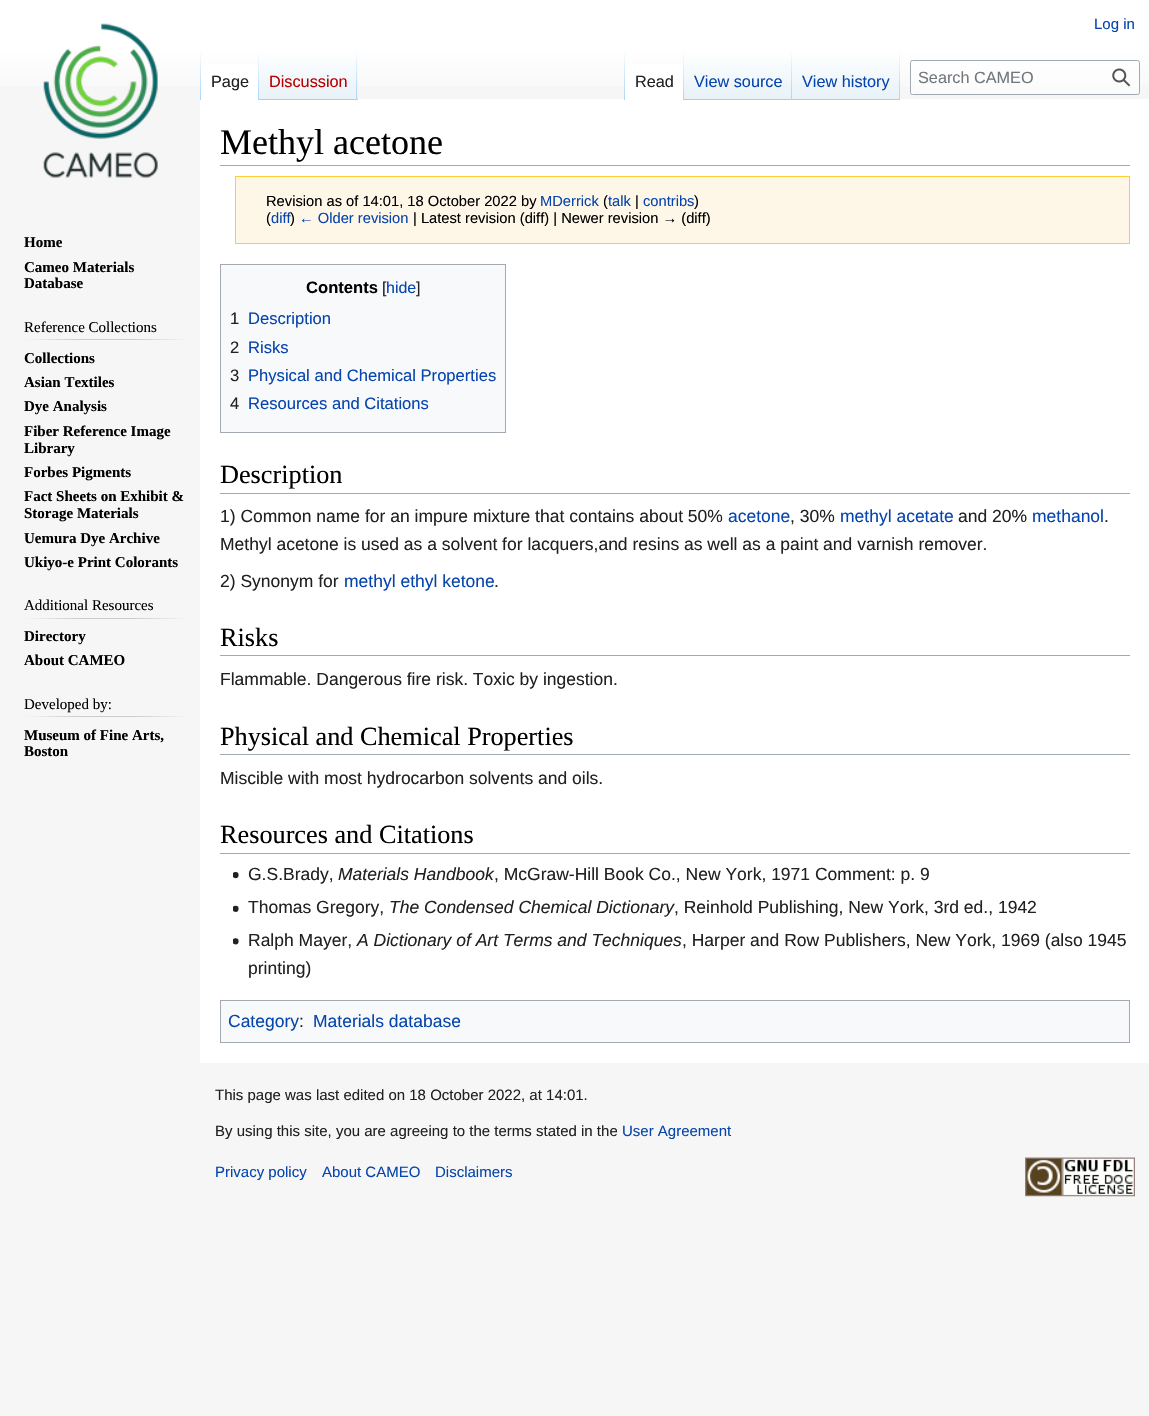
void draw(SkCanvas* canvas) {
	SkPaint paint;
	paint.setAntiAlias(true);
	canvas->clear(0xfff6f6f6);
	{
		const SkColor colors[] = {0xffffffff, 0xfff6f6f6};
		const float stops[] = {0.5, 1};
		const SkPoint ends[] = {{575, 0}, {575, 100}};
		paint.setShader(SkGradientShader::MakeLinear(ends, colors, stops, 2, SkTileMode::kClamp));
		paint.setAlpha(255);
	}
	canvas->drawRect(SkRect::MakeXYWH(0, 0, 1149, 86), paint);
	SkFont f1(fontMgr->matchFamilyStyle("Liberation Sans", SkFontStyle::Normal()), 15);
	f1.setSubpixel(true);
	paint.setShader(nullptr);
	paint.setColor(0xff0645ad);
	canvas->drawString("Log in", 1094, 29, f1, paint);
	paint.setColor(0xffffffff);
	canvas->drawRect(SkRect::MakeXYWH(200, 99, 949, 964), paint);
	{
		const SkColor colors[] = {0x00a7d7f9, 0xffa7d7f9};
		const float stops[] = {0, 1};
		const SkPoint ends[] = {{201, 50}, {201, 100}};
		paint.setShader(SkGradientShader::MakeLinear(ends, colors, stops, 2, SkTileMode::kClamp));
		paint.setAlpha(255);
	}
	canvas->drawRect(SkRect::MakeXYWH(200, 50, 1, 50), paint);
	paint.setShader(nullptr);
	paint.setColor(0xffffffff);
	canvas->drawRect(SkRect::MakeXYWH(201, 64, 57, 35), paint);
	{
		const SkColor colors[] = {0xffffffff, 0xffa7d7f9};
		const float stops[] = {0, 1};
		const SkPoint ends[] = {{258, 50}, {258, 100}};
		paint.setShader(SkGradientShader::MakeLinear(ends, colors, stops, 2, SkTileMode::kClamp));
		paint.setAlpha(255);
	}
	canvas->drawRect(SkRect::MakeXYWH(258, 50, 1, 50), paint);
	SkFont f2(fontMgr->matchFamilyStyle("Liberation Sans", SkFontStyle::Normal()), 16.25);
	f2.setSubpixel(true);
	paint.setShader(nullptr);
	paint.setColor(0xff202122);
	canvas->drawString("Page", 211, 87, f2, paint);
	{
		const SkColor colors[] = {0xff77c1f6, 0xffe8f2f8, 0xffffffff};
		const float stops[] = {0, 0.03, 1};
		const SkPoint ends[] = {{308, 100}, {308, 50}};
		paint.setShader(SkGradientShader::MakeLinear(ends, colors, stops, 3, SkTileMode::kClamp));
		paint.setAlpha(255);
	}
	canvas->drawRect(SkRect::MakeXYWH(259, 57, 99, 43), paint);
	{
		const SkColor colors[] = {0x00a7d7f9, 0xffa7d7f9};
		const float stops[] = {0, 1};
		const SkPoint ends[] = {{357, 50}, {357, 100}};
		paint.setShader(SkGradientShader::MakeLinear(ends, colors, stops, 2, SkTileMode::kClamp));
		paint.setAlpha(255);
	}
	canvas->drawRect(SkRect::MakeXYWH(356, 50, 1, 50), paint);
	paint.setShader(nullptr);
	paint.setColor(0xffba0000);
	canvas->drawString("Discussion", 269, 87, f2, paint);
	{
		const SkColor colors[] = {0x00a7d7f9, 0xffa7d7f9};
		const float stops[] = {0, 1};
		const SkPoint ends[] = {{624, 50}, {624, 100}};
		paint.setShader(SkGradientShader::MakeLinear(ends, colors, stops, 2, SkTileMode::kClamp));
		paint.setAlpha(255);
	}
	canvas->drawRect(SkRect::MakeXYWH(624, 50, 1, 50), paint);
	paint.setShader(nullptr);
	paint.setColor(0xffffffff);
	canvas->drawRect(SkRect::MakeXYWH(625, 64, 58, 35), paint);
	{
		const SkColor colors[] = {0xffffffff, 0xffa7d7f9};
		const float stops[] = {0, 1};
		const SkPoint ends[] = {{683, 50}, {683, 100}};
		paint.setShader(SkGradientShader::MakeLinear(ends, colors, stops, 2, SkTileMode::kClamp));
		paint.setAlpha(255);
	}
	canvas->drawRect(SkRect::MakeXYWH(683, 50, 1, 50), paint);
	paint.setShader(nullptr);
	paint.setColor(0xff202122);
	canvas->drawString("Read", 635, 87, f2, paint);
	{
		const SkColor colors[] = {0xff77c1f6, 0xffe8f2f8, 0xffffffff};
		const float stops[] = {0, 0.03, 1};
		const SkPoint ends[] = {{738, 100}, {738, 50}};
		paint.setShader(SkGradientShader::MakeLinear(ends, colors, stops, 3, SkTileMode::kClamp));
		paint.setAlpha(255);
	}
	canvas->drawRect(SkRect::MakeXYWH(684, 57, 109, 43), paint);
	{
		const SkColor colors[] = {0x00a7d7f9, 0xffa7d7f9};
		const float stops[] = {0, 1};
		const SkPoint ends[] = {{792, 50}, {792, 100}};
		paint.setShader(SkGradientShader::MakeLinear(ends, colors, stops, 2, SkTileMode::kClamp));
		paint.setAlpha(255);
	}
	canvas->drawRect(SkRect::MakeXYWH(791, 50, 1, 50), paint);
	paint.setShader(nullptr);
	paint.setColor(0xff0645ad);
	canvas->drawString("View source", 694, 87, f2, paint);
	{
		const SkColor colors[] = {0xff77c1f6, 0xffe8f2f8, 0xffffffff};
		const float stops[] = {0, 0.03, 1};
		const SkPoint ends[] = {{846, 100}, {846, 50}};
		paint.setShader(SkGradientShader::MakeLinear(ends, colors, stops, 3, SkTileMode::kClamp));
		paint.setAlpha(255);
	}
	canvas->drawRect(SkRect::MakeXYWH(793, 57, 107, 43), paint);
	{
		const SkColor colors[] = {0x00a7d7f9, 0xffa7d7f9};
		const float stops[] = {0, 1};
		const SkPoint ends[] = {{899, 50}, {899, 100}};
		paint.setShader(SkGradientShader::MakeLinear(ends, colors, stops, 2, SkTileMode::kClamp));
		paint.setAlpha(255);
	}
	canvas->drawRect(SkRect::MakeXYWH(899, 50, 1, 50), paint);
	paint.setShader(nullptr);
	paint.setColor(0xff0645ad);
	canvas->drawString("View history", 802, 87, f2, paint);
	paint.setColor(0x80ffffff);
	canvas->drawRoundRect(SkRect::MakeXYWH(910.5, 60.5, 229, 34), 2, 2, paint);
	paint.setStroke(true);
	paint.setStrokeWidth(1);
	paint.setColor(0xffa2a9b1);
	canvas->drawRoundRect(SkRect::MakeXYWH(910.5, 60.5, 229, 34), 2, 2, paint);
	paint.setStroke(false);
	paint.setColor(0xff72777d);
	canvas->drawString("Search CAMEO", 918, 83, f2, paint);
	canvas->drawImageRect(SkImages::DeferredFromEncodedData(SkData::MakeFromFileName("img1.png")), SkRect::MakeXYWH(1112, 68, 19, 19), SkSamplingOptions());
	canvas->drawImageRect(SkImages::DeferredFromEncodedData(SkData::MakeFromFileName("img2.png")), SkRect::MakeXYWH(43, 23, 115, 155), SkSamplingOptions());
	SkFont f3(fontMgr->matchFamilyStyle("Liberation Serif", SkFontStyle::Bold()), 15);
	f3.setSubpixel(true);
	paint.setColor(0xff000000);
	canvas->drawString("Home", 24, 247, f3, paint);
	canvas->drawString("Cameo Materials", 24, 272, f3, paint);
	canvas->drawString("Database", 24, 288, f3, paint);
	{
		const SkColor colors[] = {0xfff6f6f6, 0xffc8ccd1, 0xffc8ccd1, 0xfff6f6f6};
		const float stops[] = {0, 0.33, 0.66, 1};
		const SkPoint ends[] = {{24, 339}, {188, 339}};
		paint.setShader(SkGradientShader::MakeLinear(ends, colors, stops, 4, SkTileMode::kClamp));
		paint.setAlpha(255);
	}
	canvas->drawRect(SkRect::MakeXYWH(24, 339, 164, 1), paint);
	SkFont f4(fontMgr->matchFamilyStyle("Liberation Serif", SkFontStyle::Normal()), 15);
	f4.setSubpixel(true);
	paint.setShader(nullptr);
	paint.setColor(0xff000000);
	canvas->drawString("Reference Collections", 24, 332, f4, paint);
	canvas->drawString("Collections", 24, 363, f3, paint);
	canvas->drawString("Asian Textiles", 24, 387, f3, paint);
	canvas->drawString("Dye Analysis", 24, 411, f3, paint);
	canvas->drawString("Fiber Reference Image", 24, 436, f3, paint);
	canvas->drawString("Library", 24, 453, f3, paint);
	canvas->drawString("Forbes Pigments", 24, 477, f3, paint);
	canvas->drawString("Fact Sheets on Exhibit &", 24, 501, f3, paint);
	canvas->drawString("Storage Materials", 24, 518, f3, paint);
	canvas->drawString("Uemura Dye Archive", 24, 543, f3, paint);
	canvas->drawString("Ukiyo-e Print Colorants", 24, 567, f3, paint);
	{
		const SkColor colors[] = {0xfff6f6f6, 0xffc8ccd1, 0xffc8ccd1, 0xfff6f6f6};
		const float stops[] = {0, 0.33, 0.66, 1};
		const SkPoint ends[] = {{24, 618}, {188, 618}};
		paint.setShader(SkGradientShader::MakeLinear(ends, colors, stops, 4, SkTileMode::kClamp));
		paint.setAlpha(255);
	}
	canvas->drawRect(SkRect::MakeXYWH(24, 618, 164, 1), paint);
	paint.setShader(nullptr);
	paint.setColor(0xff000000);
	canvas->drawString("Additional Resources", 24, 610, f4, paint);
	canvas->drawString("Directory", 24, 641, f3, paint);
	canvas->drawString("About CAMEO", 24, 665, f3, paint);
	{
		const SkColor colors[] = {0xfff6f6f6, 0xffc8ccd1, 0xffc8ccd1, 0xfff6f6f6};
		const float stops[] = {0, 0.33, 0.66, 1};
		const SkPoint ends[] = {{24, 717}, {188, 717}};
		paint.setShader(SkGradientShader::MakeLinear(ends, colors, stops, 4, SkTileMode::kClamp));
		paint.setAlpha(255);
	}
	canvas->drawRect(SkRect::MakeXYWH(24, 716, 164, 1), paint);
	paint.setShader(nullptr);
	paint.setColor(0xff000000);
	canvas->drawString("Developed by:", 24, 709, f4, paint);
	canvas->drawString("Museum of Fine Arts,", 24, 740, f3, paint);
	canvas->drawString("Boston", 24, 756, f3, paint);
	paint.setColor(0xffa2a9b1);
	canvas->drawRect(SkRect::MakeXYWH(220, 165, 910, 1), paint);
	SkFont f5(fontMgr->matchFamilyStyle("Liberation Serif", SkFontStyle::Normal()), 36);
	f5.setSubpixel(true);
	paint.setColor(0xff000000);
	canvas->drawString("Methyl acetone", 220, 154, f5, paint);
	paint.setColor(0xfffef6e7);
	canvas->drawRect(SkRect::MakeXYWH(235.5, 176.5, 894, 67), paint);
	paint.setStroke(true);
	paint.setColor(0xffffcc33);
	canvas->drawRect(SkRect::MakeXYWH(235.5, 176.5, 894, 67), paint);
	SkFont f6(fontMgr->matchFamilyStyle("Liberation Sans", SkFontStyle::Normal()), 14.7);
	f6.setSubpixel(true);
	paint.setStroke(false);
	paint.setColor(0xff000000);
	canvas->drawString("Revision as of 14:01, 18 October 2022 by", 266, 206, f6, paint);
	paint.setColor(0xff0645ad);
	canvas->drawString("MDerrick", 540, 206, f6, paint);
	paint.setColor(0xff000000);
	canvas->drawString("(", 603, 206, f6, paint);
	paint.setColor(0xff0645ad);
	canvas->drawString("talk", 608, 206, f6, paint);
	paint.setColor(0xff000000);
	canvas->drawString("|", 635, 206, f6, paint);
	paint.setColor(0xff0645ad);
	canvas->drawString("contribs", 643, 206, f6, paint);
	paint.setColor(0xff000000);
	canvas->drawString(")", 694, 206, f6, paint);
	canvas->drawString("(", 266, 223, f6, paint);
	paint.setColor(0xff0645ad);
	canvas->drawString("diff", 271, 223, f6, paint);
	paint.setColor(0xff000000);
	canvas->drawString(")", 290, 223, f6, paint);
	paint.setColor(0xff0645ad);
	canvas->drawString("← Older revision", 299, 223, f6, paint);
	paint.setColor(0xff000000);
	canvas->drawString("| Latest revision (diff) | Newer revision → (diff)", 413, 223, f6, paint);
	paint.setColor(0xfff8f9fa);
	canvas->drawRect(SkRect::MakeXYWH(220.5, 264.5, 285, 168), paint);
	paint.setStroke(true);
	paint.setColor(0xffa2a9b1);
	canvas->drawRect(SkRect::MakeXYWH(220.5, 264.5, 285, 168), paint);
	SkFont f7(fontMgr->matchFamilyStyle("Liberation Sans", SkFontStyle::Bold()), 16.6);
	f7.setSubpixel(true);
	paint.setStroke(false);
	paint.setColor(0xff000000);
	canvas->drawString("Contents", 306, 293, f7, paint);
	SkFont f8(fontMgr->matchFamilyStyle("Liberation Sans", SkFontStyle::Normal()), 16);
	f8.setSubpixel(true);
	paint.setColor(0xff202122);
	canvas->drawString("[", 382, 293, f8, paint);
	paint.setColor(0xff0645ad);
	canvas->drawString("hide", 386, 293, f8, paint);
	paint.setColor(0xff202122);
	canvas->drawString("]", 416, 293, f8, paint);
	SkFont f9(fontMgr->matchFamilyStyle("Liberation Sans", SkFontStyle::Normal()), 16.6);
	f9.setSubpixel(true);
	canvas->drawString("1", 230, 324, f9, paint);
	paint.setColor(0xff0645ad);
	canvas->drawString("Description", 248, 324, f9, paint);
	paint.setColor(0xff202122);
	canvas->drawString("2", 230, 353, f9, paint);
	paint.setColor(0xff0645ad);
	canvas->drawString("Risks", 248, 353, f9, paint);
	paint.setColor(0xff202122);
	canvas->drawString("3", 230, 381, f9, paint);
	paint.setColor(0xff0645ad);
	canvas->drawString("Physical and Chemical Properties", 248, 381, f9, paint);
	paint.setColor(0xff202122);
	canvas->drawString("4", 230, 409, f9, paint);
	paint.setColor(0xff0645ad);
	canvas->drawString("Resources and Citations", 248, 409, f9, paint);
	paint.setColor(0xffa2a9b1);
	canvas->drawRect(SkRect::MakeXYWH(220, 493, 910, 1), paint);
	SkFont f10(fontMgr->matchFamilyStyle("Liberation Serif", SkFontStyle::Normal()), 26.25);
	f10.setSubpixel(true);
	paint.setColor(0xff000000);
	canvas->drawString("Description", 220, 483, f10, paint);
	SkFont f11(fontMgr->matchFamilyStyle("Liberation Sans", SkFontStyle::Normal()), 17.5);
	f11.setSubpixel(true);
	paint.setColor(0xff202122);
	canvas->drawString("1) Common name for an impure mixture that contains about 50%", 220, 522, f11, paint);
	paint.setColor(0xff0645ad);
	canvas->drawString("acetone", 728, 522, f11, paint);
	paint.setColor(0xff202122);
	canvas->drawString(", 30%", 790, 522, f11, paint);
	paint.setColor(0xff0645ad);
	canvas->drawString("methyl acetate", 840, 522, f11, paint);
	paint.setColor(0xff202122);
	canvas->drawString("and 20%", 958, 522, f11, paint);
	paint.setColor(0xff0645ad);
	canvas->drawString("methanol", 1032, 522, f11, paint);
	paint.setColor(0xff202122);
	canvas->drawString(".", 1104, 522, f11, paint);
	canvas->drawString("Methyl acetone is used as a solvent for lacquers,and resins as well as a paint and varnish remover.", 220, 550, f11, paint);
	canvas->drawString("2) Synonym for", 220, 587, f11, paint);
	paint.setColor(0xff0645ad);
	canvas->drawString("methyl ethyl ketone", 344, 587, f11, paint);
	paint.setColor(0xff202122);
	canvas->drawString(".", 494, 587, f11, paint);
	paint.setColor(0xffa2a9b1);
	canvas->drawRect(SkRect::MakeXYWH(220, 655, 910, 1), paint);
	paint.setColor(0xff000000);
	canvas->drawString("Risks", 220, 646, f10, paint);
	paint.setColor(0xff202122);
	canvas->drawString("Flammable. Dangerous fire risk. Toxic by ingestion.", 220, 685, f11, paint);
	paint.setColor(0xffa2a9b1);
	canvas->drawRect(SkRect::MakeXYWH(220, 754, 910, 1), paint);
	paint.setColor(0xff000000);
	canvas->drawString("Physical and Chemical Properties", 220, 745, f10, paint);
	paint.setColor(0xff202122);
	canvas->drawString("Miscible with most hydrocarbon solvents and oils.", 220, 784, f11, paint);
	paint.setColor(0xffa2a9b1);
	canvas->drawRect(SkRect::MakeXYWH(220, 853, 910, 1), paint);
	paint.setColor(0xff000000);
	canvas->drawString("Resources and Citations", 220, 843, f10, paint);
	canvas->drawImageRect(SkImages::DeferredFromEncodedData(SkData::MakeFromFileName("img3.png")), SkRect::MakeXYWH(233, 872, 6, 7), SkSamplingOptions());
	paint.setColor(0xff202122);
	canvas->drawString("G.S.Brady,", 248, 880, f11, paint);
	SkFont f12(fontMgr->matchFamilyStyle("Liberation Sans", SkFontStyle::Italic()), 17.5);
	f12.setSubpixel(true);
	canvas->drawString("Materials Handbook", 338, 880, f12, paint);
	canvas->drawString(", McGraw-Hill Book Co., New York, 1971 Comment: p. 9", 494, 880, f11, paint);
	canvas->drawImageRect(SkImages::DeferredFromEncodedData(SkData::MakeFromFileName("img4.png")), SkRect::MakeXYWH(233, 905, 6, 7), SkSamplingOptions());
	canvas->drawString("Thomas Gregory,", 248, 913, f11, paint);
	canvas->drawString("The Condensed Chemical Dictionary", 389, 913, f12, paint);
	canvas->drawString(", Reinhold Publishing, New York, 3rd ed., 1942", 674, 913, f11, paint);
	canvas->drawImageRect(SkImages::DeferredFromEncodedData(SkData::MakeFromFileName("img5.png")), SkRect::MakeXYWH(233, 938, 6, 7), SkSamplingOptions());
	canvas->drawString("Ralph Mayer,", 248, 946, f11, paint);
	canvas->drawString("A Dictionary of Art Terms and Techniques", 357, 946, f12, paint);
	canvas->drawString(", Harper and Row Publishers, New York, 1969 (also 1945", 682, 946, f11, paint);
	canvas->drawString("printing)", 248, 974, f11, paint);
	paint.setColor(0xfff8f9fa);
	canvas->drawRect(SkRect::MakeXYWH(220.5, 1000.5, 909, 42), paint);
	paint.setStroke(true);
	paint.setColor(0xffa2a9b1);
	canvas->drawRect(SkRect::MakeXYWH(220.5, 1000.5, 909, 42), paint);
	paint.setStroke(false);
	paint.setColor(0xff0645ad);
	canvas->drawString("Category", 228, 1027, f11, paint);
	paint.setColor(0xff202122);
	canvas->drawString(":", 299, 1027, f11, paint);
	paint.setColor(0xff0645ad);
	canvas->drawString("Materials database", 313, 1027, f11, paint);
	paint.setColor(0xff202122);
	canvas->drawString("This page was last edited on 18 October 2022, at 14:01.", 215, 1100, f1, paint);
	canvas->drawString("By using this site, you are agreeing to the terms stated in the", 215, 1136, f1, paint);
	paint.setColor(0xff0645ad);
	canvas->drawString("User Agreement", 622, 1136, f1, paint);
	canvas->drawString("Privacy policy", 215, 1177, f1, paint);
	canvas->drawString("About CAMEO", 322, 1177, f1, paint);
	canvas->drawString("Disclaimers", 435, 1177, f1, paint);
	canvas->drawImageRect(SkImages::DeferredFromEncodedData(SkData::MakeFromFileName("img6.png")), SkRect::MakeXYWH(1025, 1157, 110, 40), SkSamplingOptions());
}
